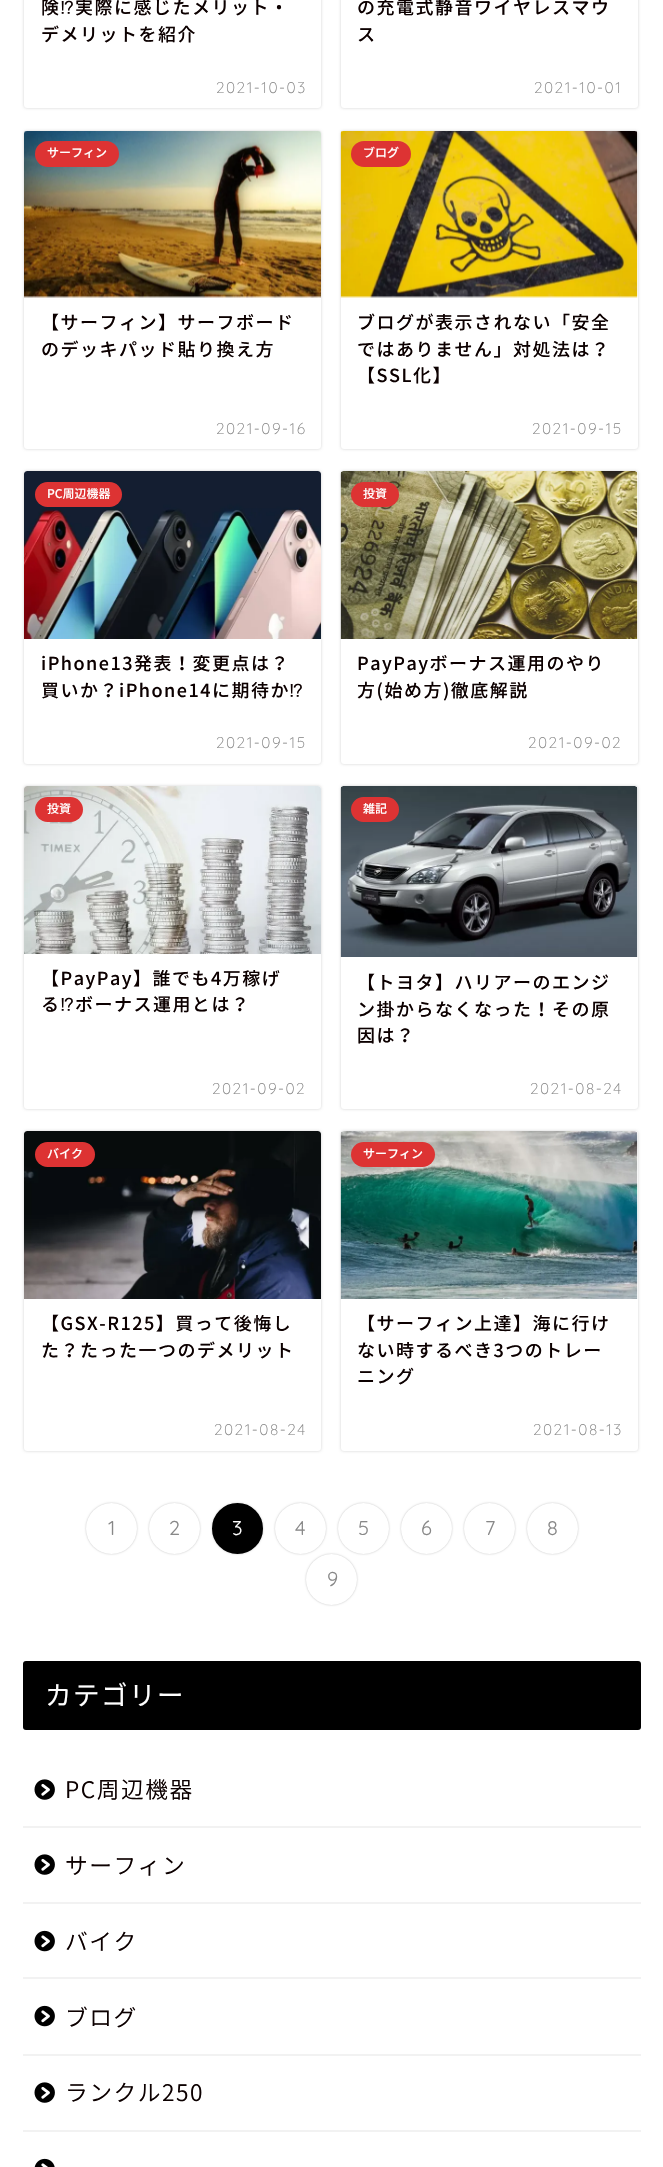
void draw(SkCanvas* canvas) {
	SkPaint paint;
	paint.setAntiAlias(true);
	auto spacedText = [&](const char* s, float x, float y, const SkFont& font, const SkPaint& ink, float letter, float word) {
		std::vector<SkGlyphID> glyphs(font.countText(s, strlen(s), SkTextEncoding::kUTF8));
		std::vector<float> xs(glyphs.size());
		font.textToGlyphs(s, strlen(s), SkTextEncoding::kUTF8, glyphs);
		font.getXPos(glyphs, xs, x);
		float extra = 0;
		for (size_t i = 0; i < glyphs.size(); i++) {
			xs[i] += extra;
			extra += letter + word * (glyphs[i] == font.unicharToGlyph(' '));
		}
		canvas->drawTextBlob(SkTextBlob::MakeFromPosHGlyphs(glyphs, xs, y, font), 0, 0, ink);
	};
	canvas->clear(0xffffffff);
	paint.setColor(0x2e000000);
	paint.setMaskFilter(SkMaskFilter::MakeBlur(kNormal_SkBlurStyle, 1.5));
	canvas->drawRoundRect(SkRect::MakeXYWH(24, -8, 297, 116), 3, 3, paint);
	paint.setMaskFilter(nullptr);
	paint.setColor(0xffffffff);
	canvas->drawRoundRect(SkRect::MakeXYWH(24, -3, 297, 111), 3, 3, paint);
	SkFont f1(fontMgr->matchFamilyStyle("Noto Sans JP", SkFontStyle(500, SkFontStyle::kNormal_Width, SkFontStyle::kUpright_Slant)), 18);
	f1.setSubpixel(true);
	paint.setColor(0xff0c0000);
	spacedText("険", 41, 14, f1, paint, 1.5, 0);
	SkFont f2(fontMgr->matchFamilyStyle("IPAPGothic", SkFontStyle::Normal()), 18);
	f2.setSubpixel(true);
	spacedText("⁉", 60, 14, f2, paint, 1.5, 0);
	spacedText("実際に感じたメリット・", 75, 14, f1, paint, 1.5, 0);
	spacedText("デメリットを紹介", 41, 41, f1, paint, 1.5, 0);
	SkFont f3(fontMgr->matchFamilyStyle("Quicksand", SkFontStyle(300, SkFontStyle::kNormal_Width, SkFontStyle::kUpright_Slant)), 15.5);
	f3.setSubpixel(true);
	paint.setColor(0xff888888);
	spacedText("2021-10-03", 216, 93, f3, paint, 1.5, 0);
	paint.setColor(0x2e000000);
	paint.setMaskFilter(SkMaskFilter::MakeBlur(kNormal_SkBlurStyle, 1.5));
	canvas->drawRoundRect(SkRect::MakeXYWH(341, -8, 297, 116), 3, 3, paint);
	paint.setMaskFilter(nullptr);
	paint.setColor(0xffffffff);
	canvas->drawRoundRect(SkRect::MakeXYWH(341, -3, 297, 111), 3, 3, paint);
	paint.setColor(0xff0c0000);
	spacedText("の充電式静音ワイヤレスマウ", 357, 14, f1, paint, 1.5, 0);
	spacedText("ス", 357, 41, f1, paint, 1.5, 0);
	paint.setColor(0xff888888);
	spacedText("2021-10-01", 534, 93, f3, paint, 1.5, 0);
	paint.setColor(0x2e000000);
	paint.setMaskFilter(SkMaskFilter::MakeBlur(kNormal_SkBlurStyle, 1.5));
	canvas->drawRoundRect(SkRect::MakeXYWH(24, 131, 297, 318), 3, 3, paint);
	paint.setMaskFilter(nullptr);
	paint.setColor(0xffffffff);
	canvas->drawRoundRect(SkRect::MakeXYWH(24, 131, 297, 318), 3, 3, paint);
	canvas->drawImageRect(SkImages::DeferredFromEncodedData(SkData::MakeFromFileName("img1.png")), SkRect::MakeXYWH(24, 131, 297, 167), SkSamplingOptions());
	paint.setColor(0xffdd3333);
	canvas->drawRoundRect(SkRect::MakeXYWH(35, 141, 84, 26), 13, 13, paint);
	SkFont f4(fontMgr->matchFamilyStyle("Noto Sans JP", SkFontStyle(500, SkFontStyle::kNormal_Width, SkFontStyle::kUpright_Slant)), 12);
	f4.setSubpixel(true);
	paint.setColor(0xffffffff);
	canvas->drawString("サーフィン", 47, 157, f4, paint);
	paint.setColor(0xff0c0000);
	spacedText("【サーフィン】サーフボード", 41, 329, f1, paint, 1.5, 0);
	spacedText("のデッキパッド貼り換え方", 41, 356, f1, paint, 1.5, 0);
	paint.setColor(0xff888888);
	spacedText("2021-09-16", 216, 434, f3, paint, 1.5, 0);
	paint.setColor(0x2e000000);
	paint.setMaskFilter(SkMaskFilter::MakeBlur(kNormal_SkBlurStyle, 1.5));
	canvas->drawRoundRect(SkRect::MakeXYWH(341, 131, 297, 318), 3, 3, paint);
	paint.setMaskFilter(nullptr);
	paint.setColor(0xffffffff);
	canvas->drawRoundRect(SkRect::MakeXYWH(341, 131, 297, 318), 3, 3, paint);
	canvas->drawImageRect(SkImages::DeferredFromEncodedData(SkData::MakeFromFileName("img2.png")), SkRect::MakeXYWH(340, 131, 298, 167), SkSamplingOptions());
	paint.setColor(0xffdd3333);
	canvas->drawRoundRect(SkRect::MakeXYWH(351, 141, 60, 26), 13, 13, paint);
	paint.setColor(0xffffffff);
	canvas->drawString("ブログ", 363, 157, f4, paint);
	paint.setColor(0xff0c0000);
	spacedText("ブログが表示されない「安全", 357, 329, f1, paint, 1.5, 0);
	spacedText("ではありません」対処法は？", 357, 356, f1, paint, 1.5, 0);
	spacedText("【SSL化】", 357, 382, f1, paint, 1.5, 0);
	paint.setColor(0xff888888);
	spacedText("2021-09-15", 532, 434, f3, paint, 1.5, 0);
	paint.setColor(0x2e000000);
	paint.setMaskFilter(SkMaskFilter::MakeBlur(kNormal_SkBlurStyle, 1.5));
	canvas->drawRoundRect(SkRect::MakeXYWH(24, 471, 297, 293), 3, 3, paint);
	paint.setMaskFilter(nullptr);
	paint.setColor(0xffffffff);
	canvas->drawRoundRect(SkRect::MakeXYWH(24, 471, 297, 293), 3, 3, paint);
	canvas->drawImageRect(SkImages::DeferredFromEncodedData(SkData::MakeFromFileName("img3.png")), SkRect::MakeXYWH(24, 471, 297, 168), SkSamplingOptions());
	paint.setColor(0xffdd3333);
	canvas->drawRoundRect(SkRect::MakeXYWH(35, 482, 87, 25), 12.5, 12.5, paint);
	paint.setColor(0xffffffff);
	canvas->drawString("PC周辺機器", 47, 498, f4, paint);
	paint.setColor(0xff0c0000);
	spacedText("iPhone13発表！変更点は？", 41, 670, f1, paint, 1.5, 0);
	spacedText("買いか？iPhone14に期待か", 41, 697, f1, paint, 1.5, 0);
	spacedText("⁉", 289, 697, f2, paint, 1.5, 0);
	paint.setColor(0xff888888);
	spacedText("2021-09-15", 216, 748, f3, paint, 1.5, 0);
	paint.setColor(0x2e000000);
	paint.setMaskFilter(SkMaskFilter::MakeBlur(kNormal_SkBlurStyle, 1.5));
	canvas->drawRoundRect(SkRect::MakeXYWH(341, 471, 297, 293), 3, 3, paint);
	paint.setMaskFilter(nullptr);
	paint.setColor(0xffffffff);
	canvas->drawRoundRect(SkRect::MakeXYWH(341, 471, 297, 293), 3, 3, paint);
	canvas->drawImageRect(SkImages::DeferredFromEncodedData(SkData::MakeFromFileName("img4.png")), SkRect::MakeXYWH(340, 471, 298, 168), SkSamplingOptions());
	paint.setColor(0xffdd3333);
	canvas->drawRoundRect(SkRect::MakeXYWH(351, 482, 48, 25), 12.5, 12.5, paint);
	paint.setColor(0xffffffff);
	canvas->drawString("投資", 363, 498, f4, paint);
	paint.setColor(0xff0c0000);
	spacedText("PayPayボーナス運用のやり", 357, 670, f1, paint, 1.5, 0);
	spacedText("方(始め方)徹底解説", 357, 697, f1, paint, 1.5, 0);
	paint.setColor(0xff888888);
	spacedText("2021-09-02", 528, 748, f3, paint, 1.5, 0);
	paint.setColor(0x2e000000);
	paint.setMaskFilter(SkMaskFilter::MakeBlur(kNormal_SkBlurStyle, 1.5));
	canvas->drawRoundRect(SkRect::MakeXYWH(24, 786, 297, 323), 3, 3, paint);
	paint.setMaskFilter(nullptr);
	paint.setColor(0xffffffff);
	canvas->drawRoundRect(SkRect::MakeXYWH(24, 786, 297, 323), 3, 3, paint);
	canvas->drawImageRect(SkImages::DeferredFromEncodedData(SkData::MakeFromFileName("img5.png")), SkRect::MakeXYWH(24, 786, 297, 168), SkSamplingOptions());
	paint.setColor(0xffdd3333);
	canvas->drawRoundRect(SkRect::MakeXYWH(35, 797, 48, 25), 12.5, 12.5, paint);
	paint.setColor(0xffffffff);
	canvas->drawString("投資", 47, 813, f4, paint);
	paint.setColor(0xff0c0000);
	spacedText("【PayPay】誰でも4万稼げ", 41, 985, f1, paint, 1.5, 0);
	spacedText("る", 41, 1011, f1, paint, 1.5, 0);
	spacedText("⁉", 60, 1011, f2, paint, 1.5, 0);
	spacedText("ボーナス運用とは？", 75, 1011, f1, paint, 1.5, 0);
	paint.setColor(0xff888888);
	spacedText("2021-09-02", 212, 1094, f3, paint, 1.5, 0);
	paint.setColor(0x2e000000);
	paint.setMaskFilter(SkMaskFilter::MakeBlur(kNormal_SkBlurStyle, 1.5));
	canvas->drawRoundRect(SkRect::MakeXYWH(341, 786, 297, 323), 3, 3, paint);
	paint.setMaskFilter(nullptr);
	paint.setColor(0xffffffff);
	canvas->drawRoundRect(SkRect::MakeXYWH(341, 786, 297, 323), 3, 3, paint);
	canvas->drawImageRect(SkImages::DeferredFromEncodedData(SkData::MakeFromFileName("img6.png")), SkRect::MakeXYWH(340, 786, 298, 171), SkSamplingOptions());
	paint.setColor(0xffdd3333);
	canvas->drawRoundRect(SkRect::MakeXYWH(351, 797, 48, 25), 12.5, 12.5, paint);
	paint.setColor(0xffffffff);
	canvas->drawString("雑記", 363, 813, f4, paint);
	paint.setColor(0xff0c0000);
	spacedText("【トヨタ】ハリアーのエンジ", 357, 989, f1, paint, 1.5, 0);
	spacedText("ン掛からなくなった！その原", 357, 1016, f1, paint, 1.5, 0);
	spacedText("因は？", 357, 1042, f1, paint, 1.5, 0);
	paint.setColor(0xff888888);
	spacedText("2021-08-24", 530, 1094, f3, paint, 1.5, 0);
	paint.setColor(0x2e000000);
	paint.setMaskFilter(SkMaskFilter::MakeBlur(kNormal_SkBlurStyle, 1.5));
	canvas->drawRoundRect(SkRect::MakeXYWH(24, 1131, 297, 320), 3, 3, paint);
	paint.setMaskFilter(nullptr);
	paint.setColor(0xffffffff);
	canvas->drawRoundRect(SkRect::MakeXYWH(24, 1131, 297, 320), 3, 3, paint);
	canvas->drawImageRect(SkImages::DeferredFromEncodedData(SkData::MakeFromFileName("img7.png")), SkRect::MakeXYWH(24, 1131, 297, 168), SkSamplingOptions());
	paint.setColor(0xffdd3333);
	canvas->drawRoundRect(SkRect::MakeXYWH(35, 1142, 60, 25), 12.5, 12.5, paint);
	paint.setColor(0xffffffff);
	canvas->drawString("バイク", 47, 1158, f4, paint);
	paint.setColor(0xff0c0000);
	spacedText("【GSX-R125】買って後悔し", 41, 1330, f1, paint, 1.5, 0);
	spacedText("た？たった一つのデメリット", 41, 1357, f1, paint, 1.5, 0);
	paint.setColor(0xff888888);
	spacedText("2021-08-24", 214, 1435, f3, paint, 1.5, 0);
	paint.setColor(0x2e000000);
	paint.setMaskFilter(SkMaskFilter::MakeBlur(kNormal_SkBlurStyle, 1.5));
	canvas->drawRoundRect(SkRect::MakeXYWH(341, 1131, 297, 320), 3, 3, paint);
	paint.setMaskFilter(nullptr);
	paint.setColor(0xffffffff);
	canvas->drawRoundRect(SkRect::MakeXYWH(341, 1131, 297, 320), 3, 3, paint);
	canvas->drawImageRect(SkImages::DeferredFromEncodedData(SkData::MakeFromFileName("img8.png")), SkRect::MakeXYWH(340, 1131, 298, 168), SkSamplingOptions());
	paint.setColor(0xffdd3333);
	canvas->drawRoundRect(SkRect::MakeXYWH(351, 1142, 84, 25), 12.5, 12.5, paint);
	paint.setColor(0xffffffff);
	canvas->drawString("サーフィン", 363, 1158, f4, paint);
	paint.setColor(0xff0c0000);
	spacedText("【サーフィン上達】海に行け", 357, 1330, f1, paint, 1.5, 0);
	spacedText("ない時するべき3つのトレー", 357, 1357, f1, paint, 1.5, 0);
	spacedText("ニング", 357, 1383, f1, paint, 1.5, 0);
	paint.setColor(0xff888888);
	spacedText("2021-08-13", 533, 1435, f3, paint, 1.5, 0);
	paint.setColor(0x40000000);
	paint.setMaskFilter(SkMaskFilter::MakeBlur(kNormal_SkBlurStyle, 1));
	canvas->drawRoundRect(SkRect::MakeXYWH(86, 1503, 51, 51), 25.5, 25.5, paint);
	paint.setMaskFilter(nullptr);
	paint.setColor(0xffffffff);
	canvas->drawCircle(111.5, 1528.5, 25.5, paint);
	SkFont f5(fontMgr->matchFamilyStyle("Quicksand", SkFontStyle::Normal()), 20);
	f5.setSubpixel(true);
	paint.setColor(0xff888888);
	spacedText("1", 108, 1535, f5, paint, 1.5, 0);
	paint.setColor(0x40000000);
	paint.setMaskFilter(SkMaskFilter::MakeBlur(kNormal_SkBlurStyle, 1));
	canvas->drawRoundRect(SkRect::MakeXYWH(149, 1503, 51, 51), 25.5, 25.5, paint);
	paint.setMaskFilter(nullptr);
	paint.setColor(0xffffffff);
	canvas->drawCircle(174.5, 1528.5, 25.5, paint);
	paint.setColor(0xff888888);
	spacedText("2", 169, 1535, f5, paint, 1.5, 0);
	paint.setColor(0x40000000);
	paint.setMaskFilter(SkMaskFilter::MakeBlur(kNormal_SkBlurStyle, 1));
	canvas->drawRoundRect(SkRect::MakeXYWH(212, 1503, 51, 51), 25.5, 25.5, paint);
	paint.setMaskFilter(nullptr);
	paint.setColor(0xff000000);
	canvas->drawCircle(237.5, 1528.5, 24.5, paint);
	paint.setStroke(true);
	paint.setStrokeWidth(2);
	canvas->drawCircle(237.5, 1528.5, 24.5, paint);
	paint.setStroke(false);
	paint.setColor(0xffffffff);
	spacedText("3", 232, 1535, f5, paint, 1.5, 0);
	paint.setColor(0x40000000);
	paint.setMaskFilter(SkMaskFilter::MakeBlur(kNormal_SkBlurStyle, 1));
	canvas->drawRoundRect(SkRect::MakeXYWH(275, 1503, 51, 51), 25.5, 25.5, paint);
	paint.setMaskFilter(nullptr);
	paint.setColor(0xffffffff);
	canvas->drawCircle(300.5, 1528.5, 25.5, paint);
	paint.setColor(0xff888888);
	spacedText("4", 295, 1535, f5, paint, 1.5, 0);
	paint.setColor(0x40000000);
	paint.setMaskFilter(SkMaskFilter::MakeBlur(kNormal_SkBlurStyle, 1));
	canvas->drawRoundRect(SkRect::MakeXYWH(338, 1503, 51, 51), 25.5, 25.5, paint);
	paint.setMaskFilter(nullptr);
	paint.setColor(0xffffffff);
	canvas->drawCircle(363.5, 1528.5, 25.5, paint);
	paint.setColor(0xff888888);
	spacedText("5", 358, 1535, f5, paint, 1.5, 0);
	paint.setColor(0x40000000);
	paint.setMaskFilter(SkMaskFilter::MakeBlur(kNormal_SkBlurStyle, 1));
	canvas->drawRoundRect(SkRect::MakeXYWH(401, 1503, 51, 51), 25.5, 25.5, paint);
	paint.setMaskFilter(nullptr);
	paint.setColor(0xffffffff);
	canvas->drawCircle(426.5, 1528.5, 25.5, paint);
	paint.setColor(0xff888888);
	spacedText("6", 421, 1535, f5, paint, 1.5, 0);
	paint.setColor(0x40000000);
	paint.setMaskFilter(SkMaskFilter::MakeBlur(kNormal_SkBlurStyle, 1));
	canvas->drawRoundRect(SkRect::MakeXYWH(464, 1503, 51, 51), 25.5, 25.5, paint);
	paint.setMaskFilter(nullptr);
	paint.setColor(0xffffffff);
	canvas->drawCircle(489.5, 1528.5, 25.5, paint);
	paint.setColor(0xff888888);
	spacedText("7", 485, 1535, f5, paint, 1.5, 0);
	paint.setColor(0x40000000);
	paint.setMaskFilter(SkMaskFilter::MakeBlur(kNormal_SkBlurStyle, 1));
	canvas->drawRoundRect(SkRect::MakeXYWH(527, 1503, 51, 51), 25.5, 25.5, paint);
	paint.setMaskFilter(nullptr);
	paint.setColor(0xffffffff);
	canvas->drawCircle(552.5, 1528.5, 25.5, paint);
	paint.setColor(0xff888888);
	spacedText("8", 547, 1535, f5, paint, 1.5, 0);
	paint.setColor(0x40000000);
	paint.setMaskFilter(SkMaskFilter::MakeBlur(kNormal_SkBlurStyle, 1));
	canvas->drawRoundRect(SkRect::MakeXYWH(306, 1554, 51, 51), 25.5, 25.5, paint);
	paint.setMaskFilter(nullptr);
	paint.setColor(0xffffffff);
	canvas->drawCircle(331.5, 1579.5, 25.5, paint);
	paint.setColor(0xff888888);
	spacedText("9", 327, 1586, f5, paint, 1.5, 0);
	paint.setColor(0xff000000);
	canvas->drawRoundRect(SkRect::MakeXYWH(23, 1661, 618, 69), 3, 3, paint);
	SkFont f6(fontMgr->matchFamilyStyle("Noto Sans JP", SkFontStyle::Normal()), 26.5);
	f6.setSubpixel(true);
	paint.setColor(0xffffffff);
	spacedText("カテゴリー", 45, 1705, f6, paint, 1.5, 0);
	paint.setColor(0xfff2f2f2);
	canvas->drawRect(SkRect::MakeXYWH(23, 1826, 618, 2), paint);
	canvas->drawImageRect(SkImages::DeferredFromEncodedData(SkData::MakeFromFileName("img9.png")), SkRect::MakeXYWH(34, 1779, 21, 21), SkSamplingOptions());
	SkFont f7(fontMgr->matchFamilyStyle("Noto Sans JP", SkFontStyle(300, SkFontStyle::kNormal_Width, SkFontStyle::kUpright_Slant)), 22.75);
	f7.setSubpixel(true);
	paint.setColor(0xff0c0000);
	spacedText("PC周辺機器", 65, 1798, f7, paint, 1.5, 0);
	paint.setColor(0xfff2f2f2);
	canvas->drawRect(SkRect::MakeXYWH(23, 1902, 618, 2), paint);
	canvas->drawImageRect(SkImages::DeferredFromEncodedData(SkData::MakeFromFileName("img9.png")), SkRect::MakeXYWH(34, 1854, 21, 21), SkSamplingOptions());
	paint.setColor(0xff0c0000);
	spacedText("サーフィン", 65, 1874, f7, paint, 1.5, 0);
	paint.setColor(0xfff2f2f2);
	canvas->drawRect(SkRect::MakeXYWH(23, 1977, 618, 2), paint);
	canvas->drawImageRect(SkImages::DeferredFromEncodedData(SkData::MakeFromFileName("img10.png")), SkRect::MakeXYWH(34, 1930, 21, 22), SkSamplingOptions());
	paint.setColor(0xff0c0000);
	spacedText("バイク", 65, 1950, f7, paint, 1.5, 0);
	paint.setColor(0xfff2f2f2);
	canvas->drawRect(SkRect::MakeXYWH(23, 2054, 618, 2), paint);
	canvas->drawImageRect(SkImages::DeferredFromEncodedData(SkData::MakeFromFileName("img10.png")), SkRect::MakeXYWH(34, 2005, 21, 22), SkSamplingOptions());
	paint.setColor(0xff0c0000);
	spacedText("ブログ", 65, 2026, f7, paint, 1.5, 0);
	paint.setColor(0xfff2f2f2);
	canvas->drawRect(SkRect::MakeXYWH(23, 2130, 618, 2), paint);
	canvas->drawImageRect(SkImages::DeferredFromEncodedData(SkData::MakeFromFileName("img9.png")), SkRect::MakeXYWH(34, 2082, 21, 21), SkSamplingOptions());
	paint.setColor(0xff0c0000);
	spacedText("ランクル250", 65, 2101, f7, paint, 1.5, 0);
	canvas->drawImageRect(SkImages::DeferredFromEncodedData(SkData::MakeFromFileName("img11.png")), SkRect::MakeXYWH(34, 2158, 21, 9), SkSamplingOptions());
}
